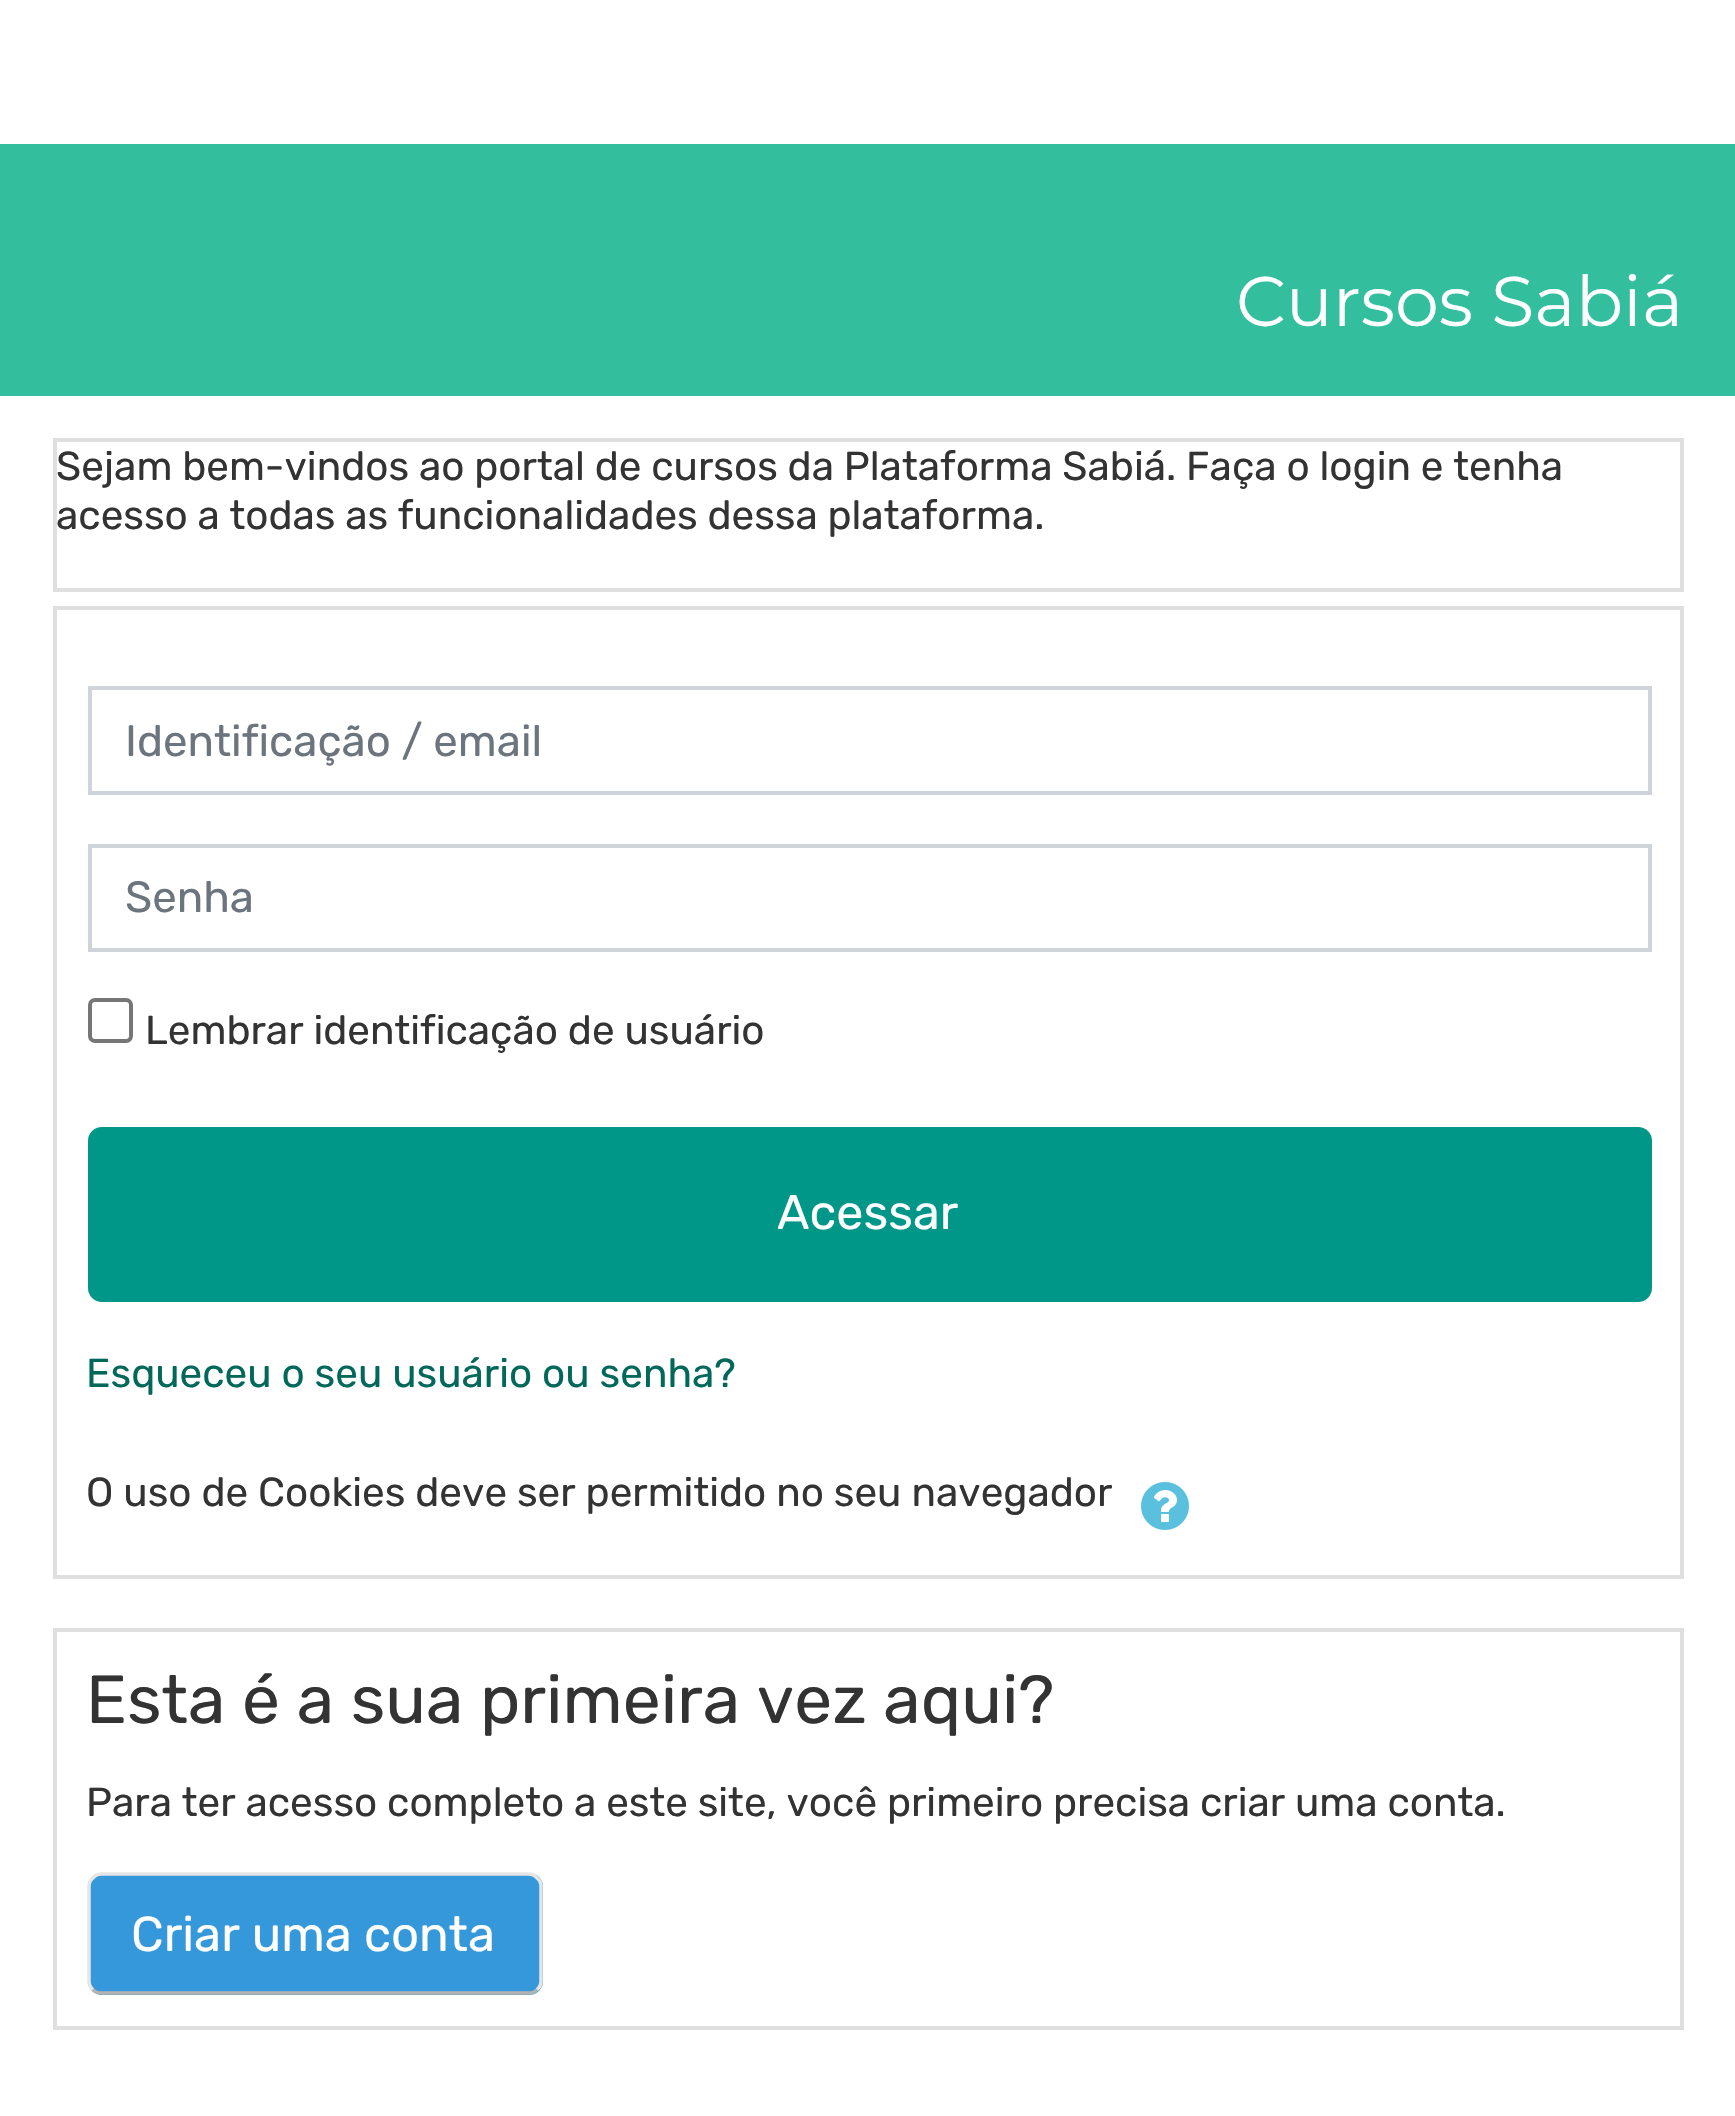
void draw(SkCanvas* canvas) {
	SkPaint paint;
	paint.setAntiAlias(true);
	auto spacedText = [&](const char* s, float x, float y, const SkFont& font, const SkPaint& ink, float letter, float word) {
		std::vector<SkGlyphID> glyphs(font.countText(s, strlen(s), SkTextEncoding::kUTF8));
		std::vector<float> xs(glyphs.size());
		font.textToGlyphs(s, strlen(s), SkTextEncoding::kUTF8, glyphs);
		font.getXPos(glyphs, xs, x);
		float extra = 0;
		for (size_t i = 0; i < glyphs.size(); i++) {
			xs[i] += extra;
			extra += letter + word * (glyphs[i] == font.unicharToGlyph(' '));
		}
		canvas->drawTextBlob(SkTextBlob::MakeFromPosHGlyphs(glyphs, xs, y, font), 0, 0, ink);
	};
	auto svgPath = [&](const char* data, bool evenOdd = false) {
		SkPath result = *SkParsePath::FromSVGString(data);
		if (evenOdd) result.setFillType(SkPathFillType::kEvenOdd);
		return result;
	};
	canvas->clear(0xffffffff);
	paint.setColor(0xff33be9e);
	canvas->drawRect(SkRect::MakeXYWH(0, 144, 1735, 252), paint);
	SkFont f1(fontMgr->matchFamilyStyle("Montserrat", SkFontStyle(100, SkFontStyle::kNormal_Width, SkFontStyle::kUpright_Slant)), 70);
	f1.setSubpixel(true);
	paint.setColor(0xffffffff);
	canvas->drawString("Cursos Sabiá", 1236, 326, f1, paint);
	paint.setStroke(true);
	paint.setStrokeWidth(4);
	paint.setColor(0xffdfdfdf);
	canvas->drawRect(SkRect::MakeXYWH(55, 440, 1627, 150), paint);
	SkFont f2(fontMgr->matchFamilyStyle("Rubik", SkFontStyle(300, SkFontStyle::kNormal_Width, SkFontStyle::kUpright_Slant)), 40.45);
	f2.setSubpixel(true);
	paint.setStroke(false);
	paint.setColor(0xff333333);
	spacedText("Sejam bem-vindos ao portal de cursos da Plataforma Sabiá. Faça o login e tenha", 56, 480, f2, paint, 0, -0.1);
	spacedText("acesso a todas as funcionalidades dessa plataforma.", 56, 529, f2, paint, 0, -0.25);
	paint.setStroke(true);
	paint.setColor(0xffdfdfdf);
	canvas->drawRect(SkRect::MakeXYWH(55, 608, 1627, 969), paint);
	paint.setColor(0xffced4da);
	canvas->drawRect(SkRect::MakeXYWH(90, 688, 1560, 105), paint);
	SkFont f3(fontMgr->matchFamilyStyle("Rubik", SkFontStyle(300, SkFontStyle::kNormal_Width, SkFontStyle::kUpright_Slant)), 43.75);
	f3.setSubpixel(true);
	paint.setStroke(false);
	paint.setColor(0xff6c757d);
	canvas->drawString("Identificação / email", 125, 756, f3, paint);
	paint.setStroke(true);
	paint.setColor(0xffced4da);
	canvas->drawRect(SkRect::MakeXYWH(90, 846, 1560, 104), paint);
	paint.setStroke(false);
	paint.setColor(0xff6c757d);
	canvas->drawString("Senha", 125, 912, f3, paint);
	paint.setStroke(true);
	paint.setColor(0xff767676);
	canvas->drawRoundRect(SkRect::MakeXYWH(90, 1000, 41, 41), 5, 5, paint);
	paint.setStroke(false);
	paint.setColor(0xff333333);
	canvas->drawString("Lembrar identificação de usuário", 145, 1044, f2, paint);
	paint.setColor(0xff009688);
	canvas->drawRoundRect(SkRect::MakeXYWH(88, 1127, 1564, 175), 14, 14, paint);
	SkFont f4(fontMgr->matchFamilyStyle("Rubik", SkFontStyle(300, SkFontStyle::kNormal_Width, SkFontStyle::kUpright_Slant)), 48.5);
	f4.setSubpixel(true);
	paint.setColor(0xffffffff);
	canvas->drawString("Acessar", 777, 1229, f4, paint);
	paint.setColor(0xff02695a);
	canvas->drawString("Esqueceu o seu usuário ou senha?", 86, 1387, f2, paint);
	paint.setColor(0xff333333);
	canvas->drawString("O uso de Cookies deve ser permitido no seu navegador", 86, 1506, f2, paint);
	canvas->drawImageRect(SkImages::DeferredFromEncodedData(SkData::MakeFromFileName("img1.png")), SkRect::MakeXYWH(1141, 1482, 48, 48), SkSamplingOptions());
	paint.setStroke(true);
	paint.setColor(0xffdfdfdf);
	canvas->drawRect(SkRect::MakeXYWH(55, 1630, 1627, 398), paint);
	SkFont f5(fontMgr->matchFamilyStyle("Rubik", SkFontStyle(300, SkFontStyle::kNormal_Width, SkFontStyle::kUpright_Slant)), 67.75);
	f5.setSubpixel(true);
	paint.setStroke(false);
	paint.setColor(0xff333333);
	canvas->drawString("Esta é a sua primeira vez aqui?", 86, 1723, f5, paint);
	spacedText("Para ter acesso completo a este site, você primeiro precisa criar uma conta.", 86, 1816, f2, paint, 0, -0.1);
	paint.setColor(0xff3498db);
	canvas->drawRoundRect(SkRect::MakeXYWH(88, 1873, 455, 122), 14, 14, paint);
	paint.setStroke(true);
	paint.setStrokeWidth(3.5);
	paint.setColor(0xffb3b3b3);
	canvas->drawPath(svgPath("M537 1989.5C535 1992 531.5 1993 528.5 1993H101.5C98.5 1993 95 1992 93 1989.5"), paint);
	paint.setColor(0xffe6e6e6);
	canvas->drawPath(svgPath("M93 1989.5C90.5 1987.5 89 1984 89 1981V1886.5C89 1883.5 90.5 1880 93 1878C95 1875.5 98.5 1874 101.5 1874H528.5C531.5 1874 535 1875.5 537 1878C539.5 1880 541 1883.5 541 1886.5V1981C541 1984 539.5 1987.5 537 1989.5"), paint);
	SkFont f6(fontMgr->matchFamilyStyle("Rubik", SkFontStyle(300, SkFontStyle::kNormal_Width, SkFontStyle::kUpright_Slant)), 49);
	f6.setSubpixel(true);
	paint.setStroke(false);
	paint.setColor(0xffffffff);
	canvas->drawString("Criar uma conta", 131, 1951, f6, paint);
}
